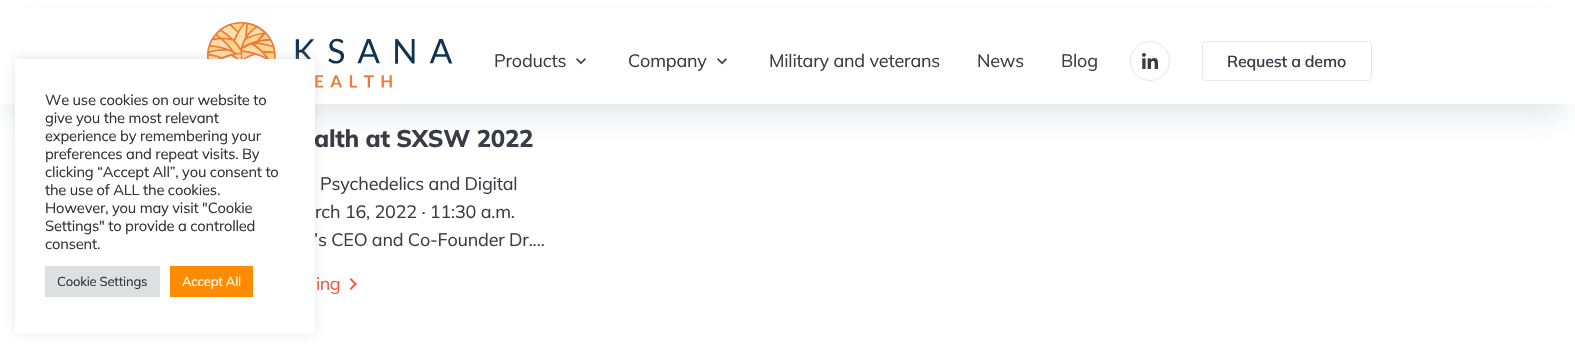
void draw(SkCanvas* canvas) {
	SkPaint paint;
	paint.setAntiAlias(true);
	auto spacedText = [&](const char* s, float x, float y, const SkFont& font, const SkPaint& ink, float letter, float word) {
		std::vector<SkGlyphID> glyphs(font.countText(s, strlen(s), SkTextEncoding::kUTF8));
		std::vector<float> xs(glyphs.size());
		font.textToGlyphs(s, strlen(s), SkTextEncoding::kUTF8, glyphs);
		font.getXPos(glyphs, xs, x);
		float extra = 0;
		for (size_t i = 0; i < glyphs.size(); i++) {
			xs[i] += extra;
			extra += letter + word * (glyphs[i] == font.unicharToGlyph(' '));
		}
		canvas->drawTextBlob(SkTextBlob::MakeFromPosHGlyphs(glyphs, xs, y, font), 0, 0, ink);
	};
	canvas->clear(0xffffffff);
	paint.setColor(0x408894ab);
	paint.setMaskFilter(SkMaskFilter::MakeBlur(kNormal_SkBlurStyle, 15));
	canvas->drawRect(SkRect::MakeXYWH(10, 30, 1555, 84), paint);
	paint.setMaskFilter(nullptr);
	paint.setColor(0xffffffff);
	canvas->drawRect(SkRect::MakeXYWH(0, 10, 1575, 94), paint);
	canvas->drawImageRect(SkImages::DeferredFromEncodedData(SkData::MakeFromFileName("img1.png")), SkRect::MakeXYWH(206, 22, 247, 66), SkSamplingOptions());
	paint.setColor(0x4dacabab);
	paint.setMaskFilter(SkMaskFilter::MakeBlur(kNormal_SkBlurStyle, 5));
	canvas->drawRect(SkRect::MakeXYWH(15, 58, 300, 275), paint);
	paint.setMaskFilter(nullptr);
	SkFont f1(fontMgr->matchFamilyStyle("Mulish", SkFontStyle(800, SkFontStyle::kNormal_Width, SkFontStyle::kUpright_Slant)), 24);
	f1.setSubpixel(true);
	paint.setColor(0xff3a3b44);
	spacedText("alth at SXSW 2022", 314, 147, f1, paint, -0.25, 0);
	paint.setColor(0xffffffff);
	canvas->drawRect(SkRect::MakeXYWH(15, 59, 300, 275), paint);
	SkFont f2(fontMgr->matchFamilyStyle("Mulish", SkFontStyle(200, SkFontStyle::kNormal_Width, SkFontStyle::kUpright_Slant)), 14.7);
	f2.setSubpixel(true);
	paint.setColor(0xff333333);
	spacedText("We use cookies on our website to", 45, 105, f2, paint, -0.2, 0);
	spacedText("give you the most relevant", 45, 123, f2, paint, -0.2, 0);
	spacedText("experience by remembering your", 45, 141, f2, paint, -0.2, 0);
	spacedText("preferences and repeat visits. By", 45, 159, f2, paint, -0.2, 0);
	spacedText("clicking “Accept All”, you consent to", 45, 177, f2, paint, -0.2, 0);
	spacedText("the use of ALL the cookies.", 45, 195, f2, paint, -0.2, 0);
	spacedText("However, you may visit \"Cookie", 45, 213, f2, paint, -0.2, 0);
	spacedText("Settings\" to provide a controlled", 45, 231, f2, paint, -0.2, 0);
	spacedText("consent.", 45, 249, f2, paint, -0.2, 0);
	paint.setColor(0xffdedfe0);
	canvas->drawRect(SkRect::MakeXYWH(45, 266, 115, 31), paint);
	SkFont f3(fontMgr->matchFamilyStyle("Mulish", SkFontStyle(200, SkFontStyle::kNormal_Width, SkFontStyle::kUpright_Slant)), 13);
	f3.setSubpixel(true);
	paint.setColor(0xff333333);
	spacedText("Cookie Settings", 57, 286, f3, paint, -0.2, 0);
	paint.setColor(0xffff8c00);
	canvas->drawRect(SkRect::MakeXYWH(170, 266, 83, 31), paint);
	paint.setColor(0xffffffff);
	spacedText("Accept All", 182, 286, f3, paint, -0.2, 0);
	SkFont f4(fontMgr->matchFamilyStyle("Mulish", SkFontStyle(200, SkFontStyle::kNormal_Width, SkFontStyle::kUpright_Slant)), 18);
	f4.setSubpixel(true);
	paint.setColor(0xff3a3b44);
	spacedText("Products", 494, 67, f4, paint, -0.2, 0);
	canvas->drawImageRect(SkImages::DeferredFromEncodedData(SkData::MakeFromFileName("img2.png")), SkRect::MakeXYWH(576, 58, 10, 7), SkSamplingOptions());
	spacedText("Company", 628, 67, f4, paint, -0.2, 0);
	canvas->drawImageRect(SkImages::DeferredFromEncodedData(SkData::MakeFromFileName("img2.png")), SkRect::MakeXYWH(717, 58, 10, 7), SkSamplingOptions());
	spacedText("Military and veterans", 769, 67, f4, paint, -0.2, 0);
	spacedText("News", 977, 67, f4, paint, -0.2, 0);
	spacedText("Blog", 1061, 67, f4, paint, -0.2, 0);
	paint.setStroke(true);
	paint.setStrokeWidth(1);
	paint.setColor(0xffe3e7e9);
	canvas->drawCircle(1150, 61, 19.5, paint);
	canvas->drawImageRect(SkImages::DeferredFromEncodedData(SkData::MakeFromFileName("img3.png")), SkRect::MakeXYWH(1142, 53, 16, 16), SkSamplingOptions());
	canvas->drawRoundRect(SkRect::MakeXYWH(1202.5, 41.5, 169, 39), 3.5, 3.5, paint);
	SkFont f5(fontMgr->matchFamilyStyle("Mulish", SkFontStyle(600, SkFontStyle::kNormal_Width, SkFontStyle::kUpright_Slant)), 16);
	f5.setSubpixel(true);
	paint.setStroke(false);
	paint.setColor(0xff3a3b44);
	spacedText("Request a demo", 1227, 67, f5, paint, -0.2, 0);
	spacedText("Psychedelics and Digital", 320, 190, f4, paint, -0.2, 0);
	spacedText("rch 16, 2022 · 11:30 a.m.", 315, 218, f4, paint, -0.2, 0);
	spacedText("’s CEO and Co-Founder Dr.…", 314, 246, f4, paint, -0.2, 0);
	paint.setColor(0xfff55741);
	spacedText("ing", 316, 290, f4, paint, -0.5, 0);
	canvas->drawImageRect(SkImages::DeferredFromEncodedData(SkData::MakeFromFileName("img4.png")), SkRect::MakeXYWH(349, 278, 8, 12), SkSamplingOptions());
}
